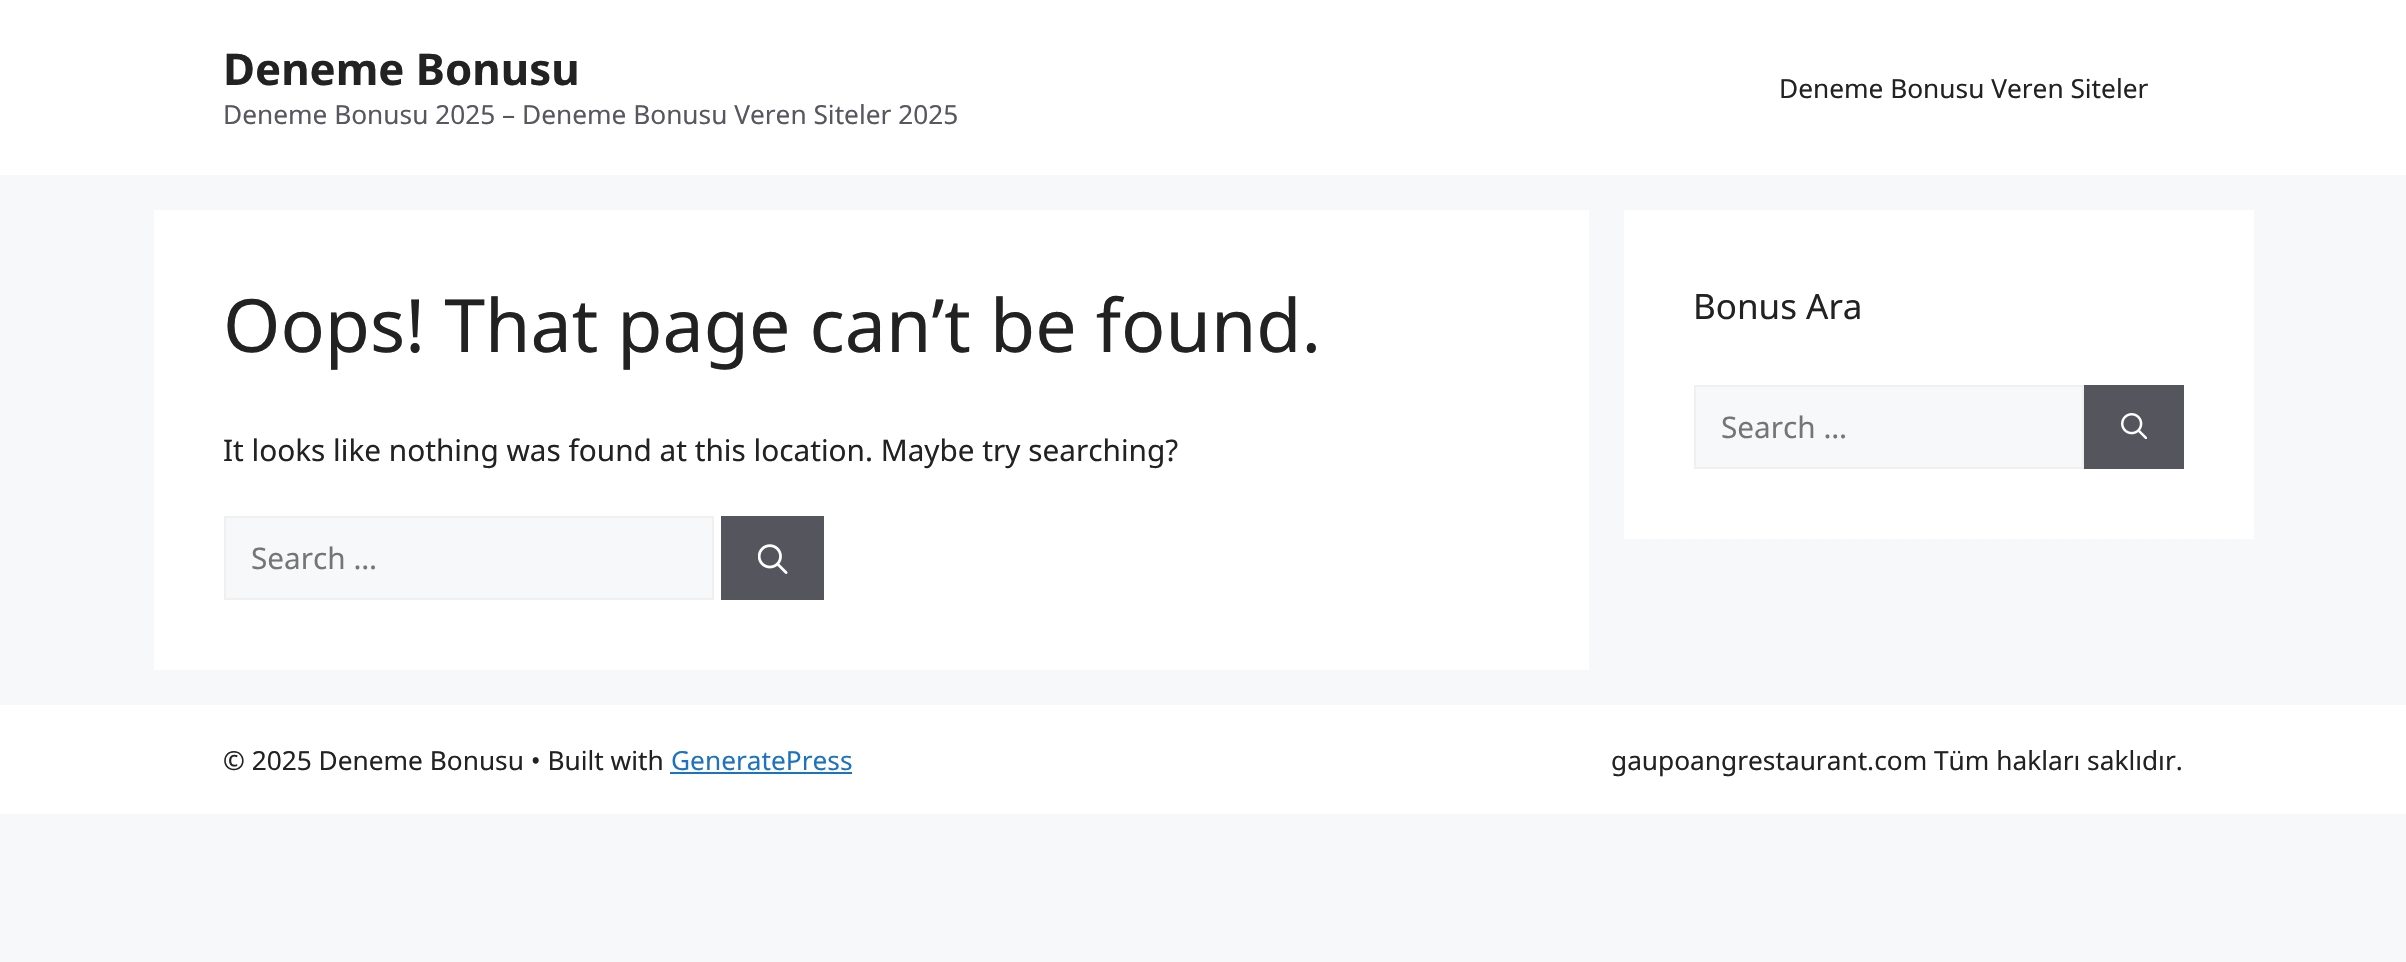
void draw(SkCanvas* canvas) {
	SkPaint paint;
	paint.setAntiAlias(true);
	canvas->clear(0xfff7f8f9);
	paint.setColor(0xffffffff);
	canvas->drawRect(SkRect::MakeXYWH(0, 0, 2406, 175), paint);
	SkFont f1(fontMgr->matchFamilyStyle("Noto Sans", SkFontStyle::Bold()), 43.75);
	f1.setSubpixel(true);
	paint.setColor(0xff222222);
	canvas->drawString("Deneme Bonusu", 223, 85, f1, paint);
	SkFont f2(fontMgr->matchFamilyStyle("Noto Sans", SkFontStyle::Normal()), 26.25);
	f2.setSubpixel(true);
	paint.setColor(0xff575760);
	canvas->drawString("Deneme Bonusu 2025 – Deneme Bonusu Veren Siteler 2025", 223, 124, f2, paint);
	paint.setColor(0xff222222);
	canvas->drawString("Deneme Bonusu Veren Siteler", 1779, 98, f2, paint);
	paint.setColor(0xffffffff);
	canvas->drawRect(SkRect::MakeXYWH(154, 210, 1435, 460), paint);
	SkFont f3(fontMgr->matchFamilyStyle("Noto Sans", SkFontStyle::Normal()), 73.5);
	f3.setSubpixel(true);
	paint.setColor(0xff222222);
	canvas->drawString("Oops! That page can’t be found.", 223, 352, f3, paint);
	SkFont f4(fontMgr->matchFamilyStyle("Noto Sans", SkFontStyle::Normal()), 29.75);
	f4.setSubpixel(true);
	canvas->drawString("It looks like nothing was found at this location. Maybe try searching?", 223, 461, f4, paint);
	paint.setColor(0xfff7f8f9);
	canvas->drawRect(SkRect::MakeXYWH(225, 517, 488, 82), paint);
	paint.setStroke(true);
	paint.setStrokeWidth(2);
	paint.setColor(0xfff0f0f0);
	canvas->drawRect(SkRect::MakeXYWH(225, 517, 488, 82), paint);
	paint.setStroke(false);
	paint.setColor(0xff757575);
	canvas->drawString("Search …", 251, 569, f4, paint);
	paint.setColor(0xff55555e);
	canvas->drawRect(SkRect::MakeXYWH(721, 516, 103, 84), paint);
	canvas->drawImageRect(SkImages::DeferredFromEncodedData(SkData::MakeFromFileName("img1.png")), SkRect::MakeXYWH(758, 544, 30, 30), SkSamplingOptions());
	paint.setColor(0xffffffff);
	canvas->drawRect(SkRect::MakeXYWH(1624, 210, 630, 329), paint);
	SkFont f5(fontMgr->matchFamilyStyle("Noto Sans", SkFontStyle::Normal()), 35);
	f5.setSubpixel(true);
	paint.setColor(0xff222222);
	canvas->drawString("Bonus Ara", 1693, 319, f5, paint);
	paint.setColor(0xfff7f8f9);
	canvas->drawRect(SkRect::MakeXYWH(1695, 386, 388, 82), paint);
	paint.setStroke(true);
	paint.setColor(0xfff0f0f0);
	canvas->drawRect(SkRect::MakeXYWH(1695, 386, 388, 82), paint);
	paint.setStroke(false);
	paint.setColor(0xff757575);
	canvas->drawString("Search …", 1721, 438, f4, paint);
	paint.setColor(0xff55555e);
	canvas->drawRect(SkRect::MakeXYWH(2084, 385, 100, 84), paint);
	canvas->drawImageRect(SkImages::DeferredFromEncodedData(SkData::MakeFromFileName("img2.png")), SkRect::MakeXYWH(2121, 413, 26, 26), SkSamplingOptions());
	paint.setColor(0xffffffff);
	canvas->drawRect(SkRect::MakeXYWH(0, 705, 2406, 109), paint);
	paint.setColor(0xff222222);
	canvas->drawString("© 2025 Deneme Bonusu • Built with", 223, 770, f2, paint);
	paint.setColor(0xff1e73be);
	canvas->drawString("GeneratePress", 671, 770, f2, paint);
	canvas->drawRect(SkRect::MakeXYWH(670, 772, 182, 2), paint);
	paint.setColor(0xff222222);
	canvas->drawString("gaupoangrestaurant.com Tüm hakları saklıdır.", 1611, 770, f2, paint);
}
